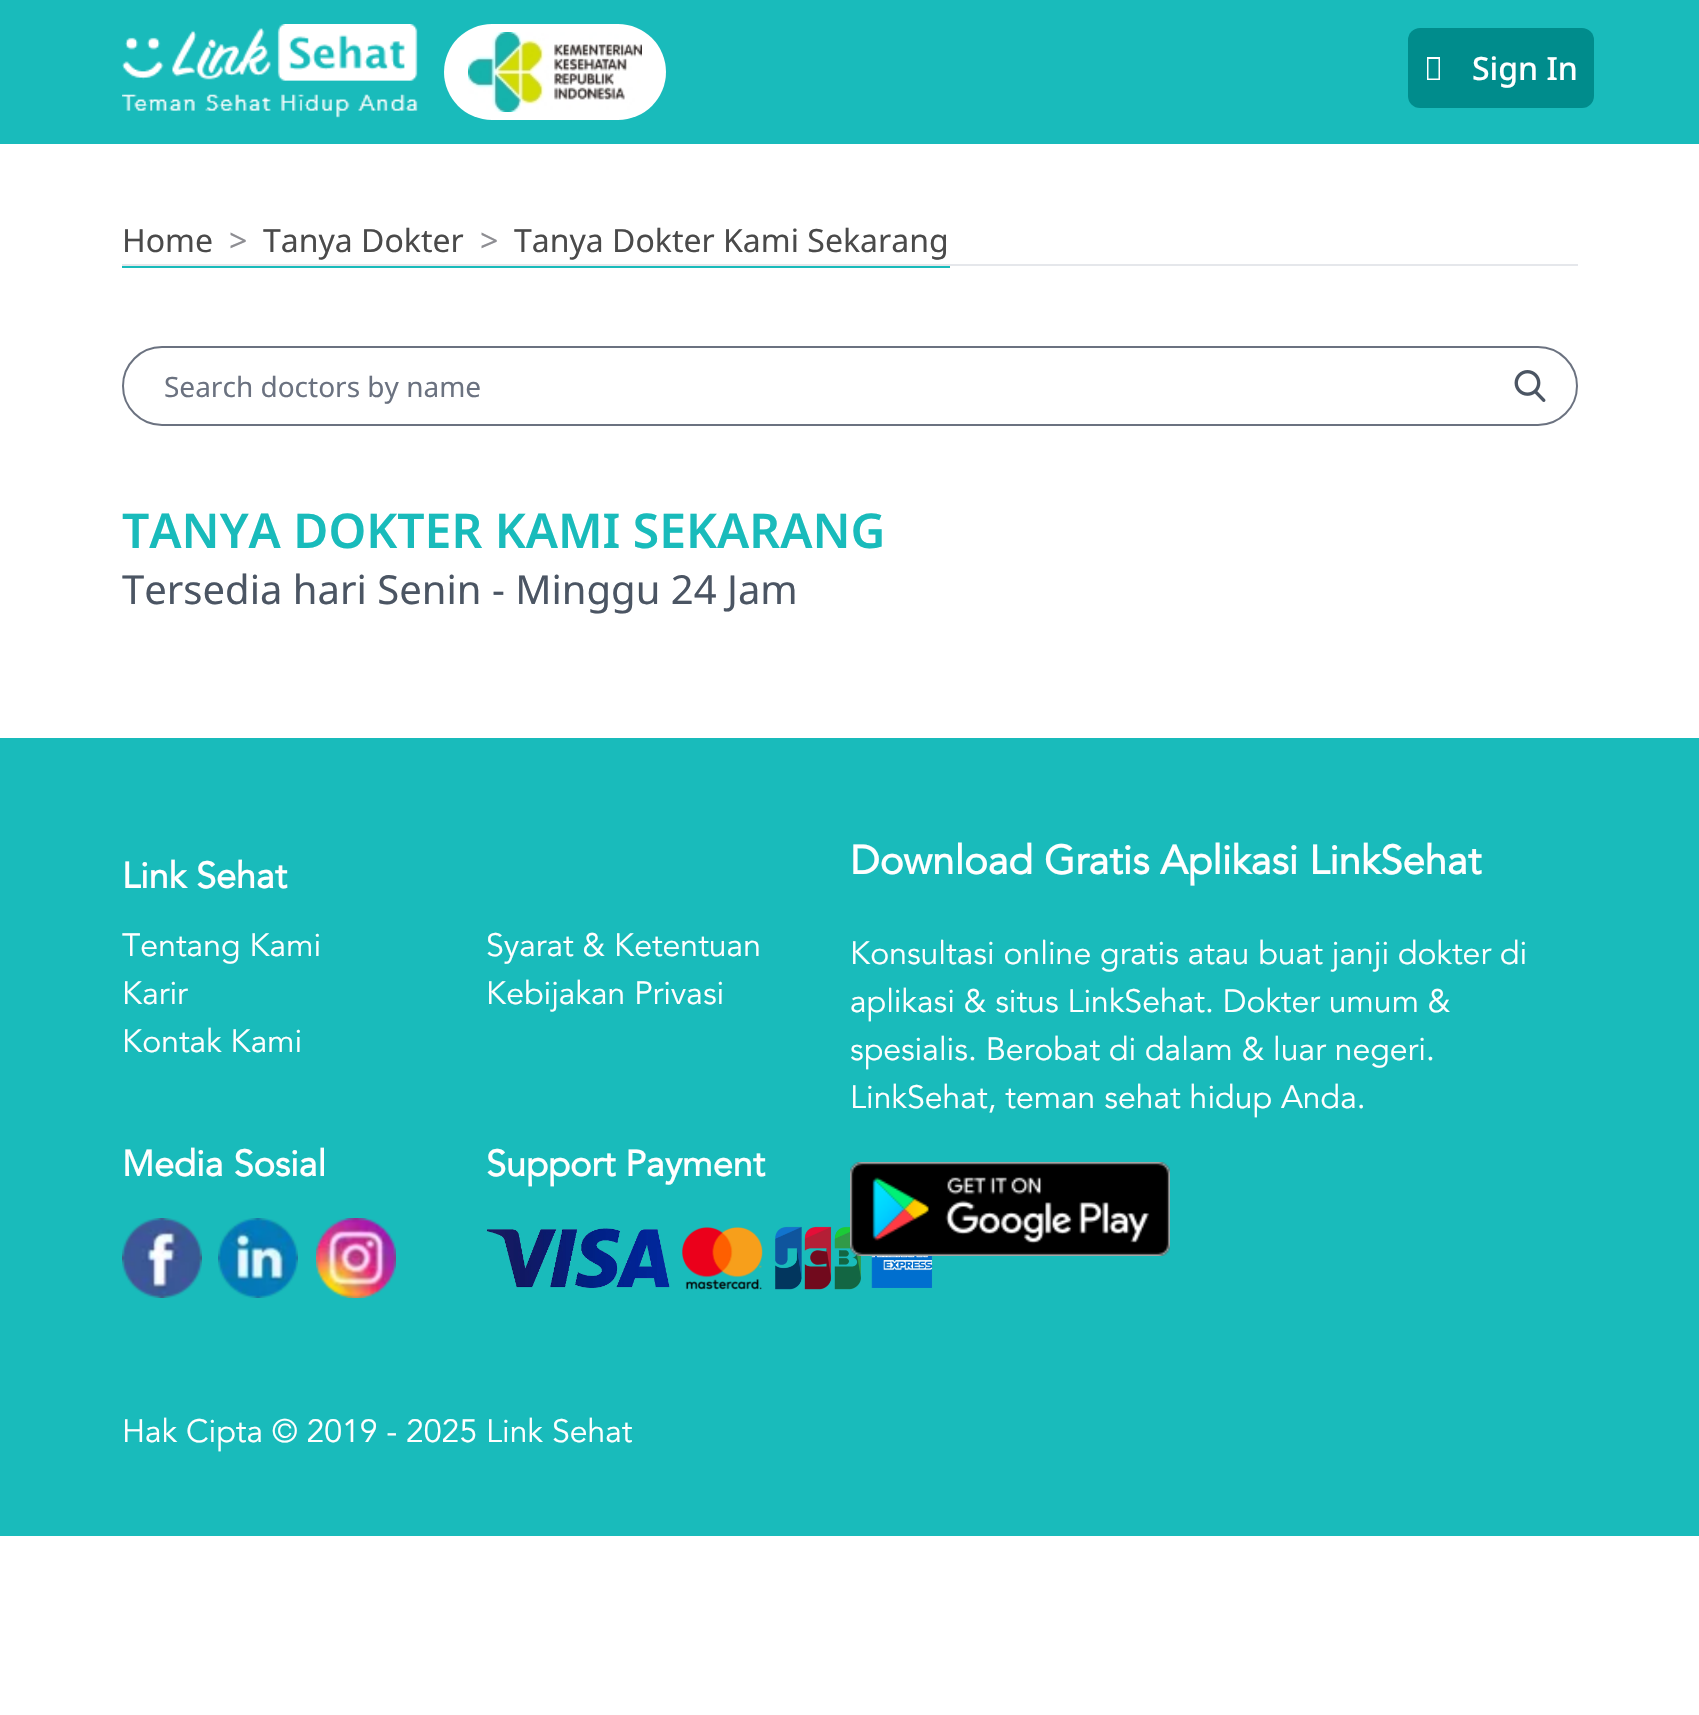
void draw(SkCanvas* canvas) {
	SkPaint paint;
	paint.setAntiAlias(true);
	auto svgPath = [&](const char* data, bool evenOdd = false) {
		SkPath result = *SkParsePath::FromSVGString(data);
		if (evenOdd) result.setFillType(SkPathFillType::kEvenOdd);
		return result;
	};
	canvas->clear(0xffffffff);
	paint.setColor(0xff19bbbb);
	canvas->drawRect(SkRect::MakeXYWH(0, 0, 1699, 144), paint);
	canvas->drawImageRect(SkImages::DeferredFromEncodedData(SkData::MakeFromFileName("img1.png")), SkRect::MakeXYWH(122, 24, 296, 94), SkSamplingOptions());
	paint.setColor(0xffffffff);
	canvas->drawRoundRect(SkRect::MakeXYWH(444, 24, 222, 96), 48, 48, paint);
	canvas->drawImageRect(SkImages::DeferredFromEncodedData(SkData::MakeFromFileName("img2.png")), SkRect::MakeXYWH(468, 32, 174, 80), SkSamplingOptions());
	paint.setColor(0xff008c8c);
	canvas->drawRoundRect(SkRect::MakeXYWH(1408, 28, 186, 80), 12, 12, paint);
	paint.setColor(0xffffffff);
	canvas->drawPath(svgPath("M1427 80V57H1440V80ZM1428.5 78.5H1438.5V59H1428.5Z"), paint);
	SkFont f1(fontMgr->matchFamilyStyle("Noto Sans", SkFontStyle(500, SkFontStyle::kNormal_Width, SkFontStyle::kUpright_Slant)), 32);
	f1.setSubpixel(true);
	canvas->drawString("Sign In", 1472, 80, f1, paint);
	paint.setColor(0xff19bbbb);
	canvas->drawRect(SkRect::MakeXYWH(122, 266, 828, 2), paint);
	SkFont f2(fontMgr->matchFamilyStyle("Noto Sans", SkFontStyle::Normal()), 32);
	f2.setSubpixel(true);
	paint.setColor(0xff4a4a4a);
	canvas->drawString("Home", 122, 252, f2, paint);
	paint.setColor(0xff8e8e93);
	canvas->drawString(">", 229, 252, f2, paint);
	paint.setColor(0xff4a4a4a);
	canvas->drawString("Tanya Dokter", 263, 252, f2, paint);
	paint.setColor(0xff8e8e93);
	canvas->drawString(">", 480, 252, f2, paint);
	paint.setColor(0xff4a4a4a);
	canvas->drawString("Tanya Dokter Kami Sekarang", 514, 252, f2, paint);
	paint.setColor(0xffe5e7eb);
	canvas->drawRect(SkRect::MakeXYWH(122, 264, 1456, 2), paint);
	paint.setStroke(true);
	paint.setStrokeWidth(2);
	paint.setColor(0xff6b7280);
	canvas->drawRoundRect(SkRect::MakeXYWH(123, 347, 1454, 78), 39, 39, paint);
	SkFont f3(fontMgr->matchFamilyStyle("Noto Sans", SkFontStyle::Normal()), 28);
	f3.setSubpixel(true);
	paint.setStroke(false);
	canvas->drawString("Search doctors by name", 164, 397, f3, paint);
	canvas->drawImageRect(SkImages::DeferredFromEncodedData(SkData::MakeFromFileName("img3.png")), SkRect::MakeXYWH(1514, 370, 32, 32), SkSamplingOptions());
	SkFont f4(fontMgr->matchFamilyStyle("Noto Sans", SkFontStyle(600, SkFontStyle::kNormal_Width, SkFontStyle::kUpright_Slant)), 48);
	f4.setSubpixel(true);
	paint.setColor(0xff19bbbb);
	canvas->drawString("TANYA DOKTER KAMI SEKARANG", 122, 548, f4, paint);
	SkFont f5(fontMgr->matchFamilyStyle("Noto Sans", SkFontStyle::Normal()), 40);
	f5.setSubpixel(true);
	paint.setColor(0xff4b5563);
	canvas->drawString("Tersedia hari Senin - Minggu 24 Jam", 122, 604, f5, paint);
	paint.setColor(0xff19bbbb);
	canvas->drawRect(SkRect::MakeXYWH(0, 738, 1699, 798), paint);
	SkFont f6(fontMgr->matchFamilyStyle("Avenir", SkFontStyle::Bold()), 36);
	f6.setSubpixel(true);
	paint.setColor(0xffffffff);
	canvas->drawString("Link Sehat", 122, 888, f6, paint);
	SkFont f7(fontMgr->matchFamilyStyle("Avenir", SkFontStyle::Normal()), 32);
	f7.setSubpixel(true);
	canvas->drawString("Tentang Kami", 122, 956, f7, paint);
	canvas->drawString("Karir", 122, 1004, f7, paint);
	canvas->drawString("Kontak Kami", 122, 1052, f7, paint);
	canvas->drawString("Syarat & Ketentuan", 486, 956, f7, paint);
	canvas->drawString("Kebijakan Privasi", 486, 1004, f7, paint);
	canvas->drawString("Media Sosial", 122, 1176, f6, paint);
	canvas->drawImageRect(SkImages::DeferredFromEncodedData(SkData::MakeFromFileName("img4.png")), SkRect::MakeXYWH(122, 1218, 80, 80), SkSamplingOptions());
	canvas->drawImageRect(SkImages::DeferredFromEncodedData(SkData::MakeFromFileName("img5.png")), SkRect::MakeXYWH(218, 1218, 80, 80), SkSamplingOptions());
	canvas->drawImageRect(SkImages::DeferredFromEncodedData(SkData::MakeFromFileName("img6.png")), SkRect::MakeXYWH(316, 1218, 80, 80), SkSamplingOptions());
	canvas->drawString("Support Payment", 486, 1176, f6, paint);
	canvas->drawImageRect(SkImages::DeferredFromEncodedData(SkData::MakeFromFileName("img7.png")), SkRect::MakeXYWH(486, 1228, 184, 60), SkSamplingOptions());
	canvas->drawImageRect(SkImages::DeferredFromEncodedData(SkData::MakeFromFileName("img8.png")), SkRect::MakeXYWH(682, 1227, 81, 63), SkSamplingOptions());
	canvas->drawImageRect(SkImages::DeferredFromEncodedData(SkData::MakeFromFileName("img9.png")), SkRect::MakeXYWH(775, 1226, 86, 64), SkSamplingOptions());
	canvas->drawImageRect(SkImages::DeferredFromEncodedData(SkData::MakeFromFileName("img10.png")), SkRect::MakeXYWH(871, 1256, 62, 32), SkSamplingOptions());
	canvas->drawString("Hak Cipta © 2019 - 2025 Link Sehat", 122, 1442, f7, paint);
	SkFont f8(fontMgr->matchFamilyStyle("Avenir", SkFontStyle::Bold()), 40);
	f8.setSubpixel(true);
	canvas->drawString("Download Gratis Aplikasi LinkSehat", 850, 874, f8, paint);
	canvas->drawString("Konsultasi online gratis atau buat janji dokter di", 850, 964, f7, paint);
	canvas->drawString("aplikasi & situs LinkSehat. Dokter umum &", 850, 1012, f7, paint);
	canvas->drawString("spesialis. Berobat di dalam & luar negeri.", 850, 1060, f7, paint);
	canvas->drawString("LinkSehat, teman sehat hidup Anda.", 850, 1108, f7, paint);
	canvas->drawImageRect(SkImages::DeferredFromEncodedData(SkData::MakeFromFileName("img11.png")), SkRect::MakeXYWH(850, 1162, 320, 94), SkSamplingOptions());
}
